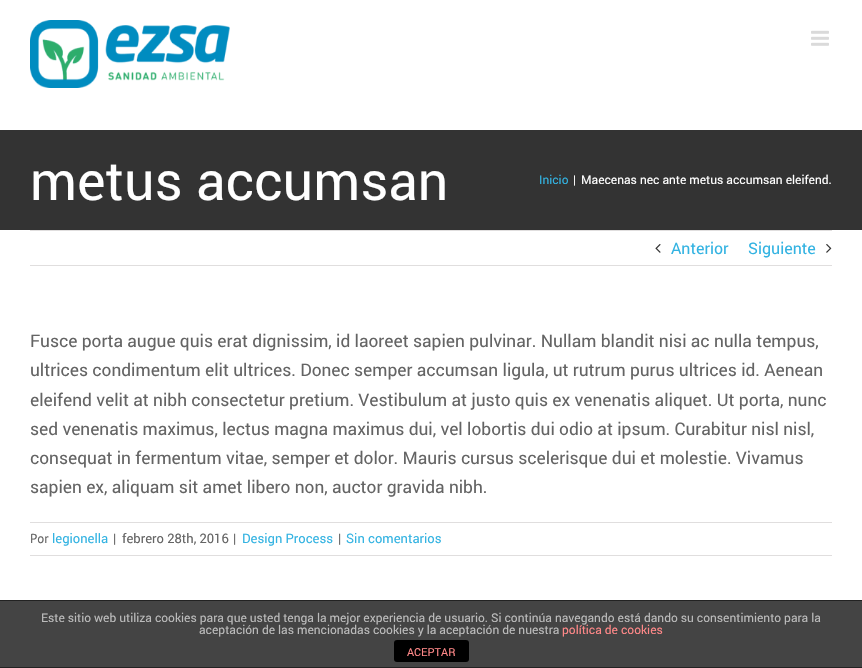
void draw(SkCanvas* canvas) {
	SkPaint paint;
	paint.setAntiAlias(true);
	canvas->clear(0xffffffff);
	canvas->drawImageRect(SkImages::DeferredFromEncodedData(SkData::MakeFromFileName("img1.png")), SkRect::MakeXYWH(30, 20, 200, 68), SkSamplingOptions());
	canvas->drawImageRect(SkImages::DeferredFromEncodedData(SkData::MakeFromFileName("img2.png")), SkRect::MakeXYWH(811, 30, 18, 16), SkSamplingOptions());
	paint.setColor(0xff333333);
	canvas->drawRect(SkRect::MakeXYWH(0, 130, 862, 100), paint);
	SkFont f1(fontMgr->matchFamilyStyle("Roboto", SkFontStyle::Normal()), 53.75);
	f1.setSubpixel(true);
	paint.setColor(0xffffffff);
	canvas->drawString("metus accumsan", 30, 200, f1, paint);
	SkFont f2(fontMgr->matchFamilyStyle("Roboto", SkFontStyle::Normal()), 12);
	f2.setSubpixel(true);
	paint.setColor(0xff33b3e2);
	canvas->drawString("Inicio", 539, 184, f2, paint);
	paint.setColor(0xffffffff);
	canvas->drawString("|", 573, 184, f2, paint);
	canvas->drawString("Maecenas nec ante metus accumsan eleifend.", 581, 184, f2, paint);
	paint.setColor(0xffe0dede);
	canvas->drawRect(SkRect::MakeXYWH(30, 230, 802, 1), paint);
	canvas->drawRect(SkRect::MakeXYWH(30, 265, 802, 1), paint);
	canvas->drawImageRect(SkImages::DeferredFromEncodedData(SkData::MakeFromFileName("img3.png")), SkRect::MakeXYWH(655, 244, 6, 9), SkSamplingOptions());
	SkFont f3(fontMgr->matchFamilyStyle("Roboto", SkFontStyle::Normal()), 16);
	f3.setSubpixel(true);
	paint.setColor(0xff33b3e2);
	canvas->drawString("Anterior", 671, 254, f3, paint);
	canvas->drawString("Siguiente", 748, 254, f3, paint);
	canvas->drawImageRect(SkImages::DeferredFromEncodedData(SkData::MakeFromFileName("img4.png")), SkRect::MakeXYWH(826, 244, 6, 9), SkSamplingOptions());
	SkFont f4(fontMgr->matchFamilyStyle("Roboto", SkFontStyle::Normal()), 17.35);
	f4.setSubpixel(true);
	paint.setColor(0xff646464);
	canvas->drawString("Fusce porta augue quis erat dignissim, id laoreet sapien pulvinar. Nullam blandit nisi ac nulla tempus,", 30, 347, f4, paint);
	canvas->drawString("ultrices condimentum elit ultrices. Donec semper accumsan ligula, ut rutrum purus ultrices id. Aenean", 30, 376, f4, paint);
	canvas->drawString("eleifend velit at nibh consectetur pretium. Vestibulum at justo quis ex venenatis aliquet. Ut porta, nunc", 30, 406, f4, paint);
	canvas->drawString("sed venenatis maximus, lectus magna maximus dui, vel lobortis dui odio at ipsum. Curabitur nisl nisl,", 30, 435, f4, paint);
	canvas->drawString("consequat in fermentum vitae, semper et dolor. Mauris cursus scelerisque dui et molestie. Vivamus", 30, 464, f4, paint);
	canvas->drawString("sapien ex, aliquam sit amet libero non, auctor gravida nibh.", 30, 493, f4, paint);
	paint.setColor(0xffe0dede);
	canvas->drawRect(SkRect::MakeXYWH(30, 522, 802, 1), paint);
	canvas->drawRect(SkRect::MakeXYWH(30, 555, 802, 1), paint);
	SkFont f5(fontMgr->matchFamilyStyle("PT Sans", SkFontStyle::Normal()), 13);
	f5.setSubpixel(true);
	paint.setColor(0xff646464);
	canvas->drawString("Por", 30, 543, f5, paint);
	SkFont f6(fontMgr->matchFamilyStyle("Roboto", SkFontStyle::Normal()), 13);
	f6.setSubpixel(true);
	paint.setColor(0xff33b3e2);
	canvas->drawString("legionella", 52, 543, f6, paint);
	paint.setColor(0xff646464);
	canvas->drawString("|", 113, 543, f6, paint);
	canvas->drawString("febrero 28th, 2016", 122, 543, f6, paint);
	canvas->drawString("|", 233, 543, f6, paint);
	paint.setColor(0xff33b3e2);
	canvas->drawString("Design Process", 242, 543, f6, paint);
	paint.setColor(0xff646464);
	canvas->drawString("|", 338, 543, f6, paint);
	paint.setColor(0xff33b3e2);
	canvas->drawString("Sin comentarios", 346, 543, f6, paint);
	paint.setColor(0xff444444);
	canvas->drawRect(SkRect::MakeXYWH(0, 601, 862, 66), paint);
	paint.setColor(0xff222222);
	canvas->drawRect(SkRect::MakeXYWH(0, 600, 862, 1), paint);
	canvas->drawRect(SkRect::MakeXYWH(0, 667, 862, 1), paint);
	paint.setColor(0xffbbbbbb);
	canvas->drawString("Este sitio web utiliza cookies para que usted tenga la mejor experiencia de usuario. Si continúa navegando está dando su consentimiento para la", 41, 622, f2, paint);
	canvas->drawString("aceptación de las mencionadas cookies y la aceptación de nuestra", 199, 634, f2, paint);
	paint.setColor(0xffff8888);
	canvas->drawString("política de cookies", 562, 634, f2, paint);
	paint.setColor(0xff000000);
	canvas->drawRoundRect(SkRect::MakeXYWH(394, 640, 75, 22), 3, 3, paint);
	SkFont f7(fontMgr->matchFamilyStyle("Roboto", SkFontStyle::Normal()), 11);
	f7.setSubpixel(true);
	paint.setColor(0xffff8888);
	canvas->drawString("ACEPTAR", 407, 656, f7, paint);
}
